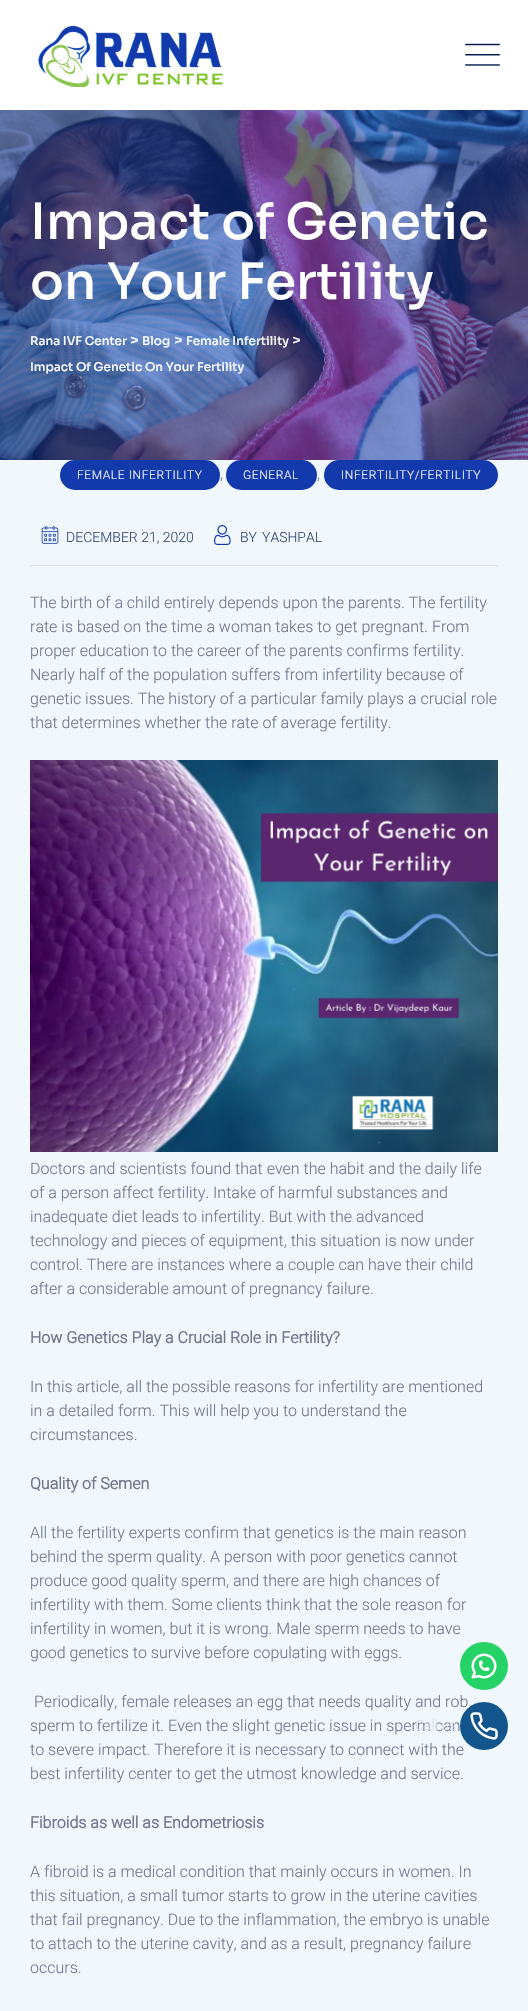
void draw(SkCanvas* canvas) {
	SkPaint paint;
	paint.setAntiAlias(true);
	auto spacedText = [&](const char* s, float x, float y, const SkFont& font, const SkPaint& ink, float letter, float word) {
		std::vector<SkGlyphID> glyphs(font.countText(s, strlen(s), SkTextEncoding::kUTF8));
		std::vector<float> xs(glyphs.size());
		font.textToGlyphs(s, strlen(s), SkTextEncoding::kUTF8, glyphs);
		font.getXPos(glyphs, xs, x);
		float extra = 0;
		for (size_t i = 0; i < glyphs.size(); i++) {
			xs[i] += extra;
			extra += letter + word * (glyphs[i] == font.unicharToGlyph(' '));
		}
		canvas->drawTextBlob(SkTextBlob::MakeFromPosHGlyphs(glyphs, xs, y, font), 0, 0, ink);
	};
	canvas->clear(0xfff0f7fd);
	paint.setColor(0xffffffff);
	canvas->drawRect(SkRect::MakeXYWH(0, 0, 528, 110), paint);
	canvas->drawImageRect(SkImages::DeferredFromEncodedData(SkData::MakeFromFileName("img1.png")), SkRect::MakeXYWH(38, 25, 185, 62), SkSamplingOptions());
	canvas->drawImageRect(SkImages::DeferredFromEncodedData(SkData::MakeFromFileName("img2.png")), SkRect::MakeXYWH(465, 43, 35, 23), SkSamplingOptions());
	canvas->drawImageRect(SkImages::DeferredFromEncodedData(SkData::MakeFromFileName("img3.png")), SkRect::MakeXYWH(0, 110, 528, 350), SkSamplingOptions());
	SkFont f1(fontMgr->matchFamilyStyle("Sora", SkFontStyle(500, SkFontStyle::kNormal_Width, SkFontStyle::kUpright_Slant)), 50);
	f1.setSubpixel(true);
	canvas->drawString("Impact of Genetic", 30, 239, f1, paint);
	canvas->drawString("on Your Fertility", 30, 299, f1, paint);
	SkFont f2(fontMgr->matchFamilyStyle("Sora", SkFontStyle(500, SkFontStyle::kNormal_Width, SkFontStyle::kUpright_Slant)), 12);
	f2.setSubpixel(true);
	canvas->drawString("Rana IVF Center", 30, 345, f2, paint);
	SkFont f3(fontMgr->matchFamilyStyle("Sora", SkFontStyle(500, SkFontStyle::kNormal_Width, SkFontStyle::kUpright_Slant)), 15);
	f3.setSubpixel(true);
	canvas->drawString(">", 130, 345, f3, paint);
	canvas->drawString("Blog", 142, 345, f2, paint);
	canvas->drawString(">", 174, 345, f3, paint);
	canvas->drawString("Female Infertility", 186, 345, f2, paint);
	canvas->drawString(">", 292, 345, f3, paint);
	canvas->drawString("Impact Of Genetic On Your Fertility", 30, 371, f2, paint);
	paint.setColor(0xff123aad);
	canvas->drawRoundRect(SkRect::MakeXYWH(60, 460, 160, 30), 15, 15, paint);
	SkFont f4(fontMgr->matchFamilyStyle("Roboto", SkFontStyle(300, SkFontStyle::kNormal_Width, SkFontStyle::kUpright_Slant)), 12);
	f4.setSubpixel(true);
	paint.setColor(0xffffffff);
	spacedText("FEMALE INFERTILITY", 77, 479, f4, paint, 0.6, 0);
	SkFont f5(fontMgr->matchFamilyStyle("Roboto", SkFontStyle(300, SkFontStyle::kNormal_Width, SkFontStyle::kUpright_Slant)), 16);
	f5.setSubpixel(true);
	paint.setColor(0xff6e778c);
	canvas->drawString(",", 220, 479, f5, paint);
	paint.setColor(0xff123aad);
	canvas->drawRoundRect(SkRect::MakeXYWH(226, 460, 91, 30), 15, 15, paint);
	paint.setColor(0xffffffff);
	spacedText("GENERAL", 243, 479, f4, paint, 0.6, 0);
	paint.setColor(0xff6e778c);
	canvas->drawString(",", 317, 479, f5, paint);
	paint.setColor(0xff123aad);
	canvas->drawRoundRect(SkRect::MakeXYWH(324, 460, 174, 30), 15, 15, paint);
	paint.setColor(0xffffffff);
	spacedText("INFERTILITY/FERTILITY", 341, 479, f4, paint, 0.6, 0);
	paint.setColor(0xffd8e1ec);
	canvas->drawRect(SkRect::MakeXYWH(30, 565, 468, 1), paint);
	canvas->drawImageRect(SkImages::DeferredFromEncodedData(SkData::MakeFromFileName("img4.png")), SkRect::MakeXYWH(41, 526, 18, 18), SkSamplingOptions());
	SkFont f6(fontMgr->matchFamilyStyle("Roboto", SkFontStyle(300, SkFontStyle::kNormal_Width, SkFontStyle::kUpright_Slant)), 14);
	f6.setSubpixel(true);
	paint.setColor(0xff324771);
	canvas->drawString("DECEMBER 21, 2020", 66, 542, f6, paint);
	canvas->drawImageRect(SkImages::DeferredFromEncodedData(SkData::MakeFromFileName("img5.png")), SkRect::MakeXYWH(214, 525, 17, 20), SkSamplingOptions());
	canvas->drawString("BY", 240, 542, f6, paint);
	canvas->drawString("YASHPAL", 262, 542, f6, paint);
	paint.setColor(0xff6e778c);
	canvas->drawString("The birth of a child entirely depends upon the parents. The fertility", 30, 608, f5, paint);
	canvas->drawString("rate is based on the time a woman takes to get pregnant. From", 30, 632, f5, paint);
	canvas->drawString("proper education to the career of the parents confirms fertility.", 30, 656, f5, paint);
	canvas->drawString("Nearly half of the population suffers from infertility because of", 30, 680, f5, paint);
	canvas->drawString("genetic issues. The history of a particular family plays a crucial role", 30, 704, f5, paint);
	canvas->drawString("that determines whether the rate of average fertility.", 30, 728, f5, paint);
	canvas->drawImageRect(SkImages::DeferredFromEncodedData(SkData::MakeFromFileName("img6.png")), SkRect::MakeXYWH(30, 760, 468, 392), SkSamplingOptions());
	canvas->drawString("Doctors and scientists found that even the habit and the daily life", 30, 1174, f5, paint);
	canvas->drawString("of a person affect fertility. Intake of harmful substances and", 30, 1198, f5, paint);
	canvas->drawString("inadequate diet leads to infertility. But with the advanced", 30, 1222, f5, paint);
	canvas->drawString("technology and pieces of equipment, this situation is now under", 30, 1246, f5, paint);
	canvas->drawString("control. There are instances where a couple can have their child", 30, 1270, f5, paint);
	canvas->drawString("after a considerable amount of pregnancy failure.", 30, 1294, f5, paint);
	SkFont f7(fontMgr->matchFamilyStyle("Roboto", SkFontStyle::Bold()), 16);
	f7.setSubpixel(true);
	canvas->drawString("How Genetics Play a Crucial Role in Fertility?", 30, 1343, f7, paint);
	canvas->drawString("In this article, all the possible reasons for infertility are mentioned", 30, 1392, f5, paint);
	canvas->drawString("in a detailed form. This will help you to understand the", 30, 1416, f5, paint);
	canvas->drawString("circumstances.", 30, 1440, f5, paint);
	canvas->drawString("Quality of Semen", 30, 1489, f7, paint);
	canvas->drawString("All the fertility experts confirm that genetics is the main reason", 30, 1538, f5, paint);
	canvas->drawString("behind the sperm quality. A person with poor genetics cannot", 30, 1562, f5, paint);
	canvas->drawString("produce good quality sperm, and there are high chances of", 30, 1586, f5, paint);
	canvas->drawString("infertility with them. Some clients think that the sole reason for", 30, 1610, f5, paint);
	canvas->drawString("infertility in women, but it is wrong. Male sperm needs to have", 30, 1634, f5, paint);
	canvas->drawString("good genetics to survive before copulating with eggs.", 30, 1658, f5, paint);
	canvas->drawString("Periodically, female releases an egg that needs quality and rob", 34, 1707, f5, paint);
	canvas->drawString("sperm to fertilize it. Even the slight genetic issue in sperm can", 30, 1731, f5, paint);
	canvas->drawString("to severe impact. Therefore it is necessary to connect with the", 30, 1755, f5, paint);
	canvas->drawString("best infertility center to get the utmost knowledge and service.", 30, 1779, f5, paint);
	canvas->drawString("Fibroids as well as Endometriosis", 30, 1828, f7, paint);
	canvas->drawString("A fibroid is a medical condition that mainly occurs in women. In", 30, 1877, f5, paint);
	canvas->drawString("this situation, a small tumor starts to grow in the uterine cavities", 30, 1901, f5, paint);
	canvas->drawString("that fail pregnancy. Due to the inflammation, the embryo is unable", 30, 1925, f5, paint);
	canvas->drawString("to attach to the uterine cavity, and as a result, pregnancy failure", 30, 1949, f5, paint);
	canvas->drawString("occurs.", 30, 1973, f5, paint);
	paint.setColor(0xff25d366);
	canvas->drawCircle(484, 1666, 24, paint);
	canvas->drawImageRect(SkImages::DeferredFromEncodedData(SkData::MakeFromFileName("img7.png")), SkRect::MakeXYWH(471, 1653, 26, 26), SkSamplingOptions());
	paint.setColor(0xffd9e0e9);
	canvas->drawString("Call us", 415, 1730, f6, paint);
	paint.setColor(0xff12558c);
	canvas->drawCircle(484, 1726, 24, paint);
	canvas->drawImageRect(SkImages::DeferredFromEncodedData(SkData::MakeFromFileName("img8.png")), SkRect::MakeXYWH(470, 1712, 28, 28), SkSamplingOptions());
}
